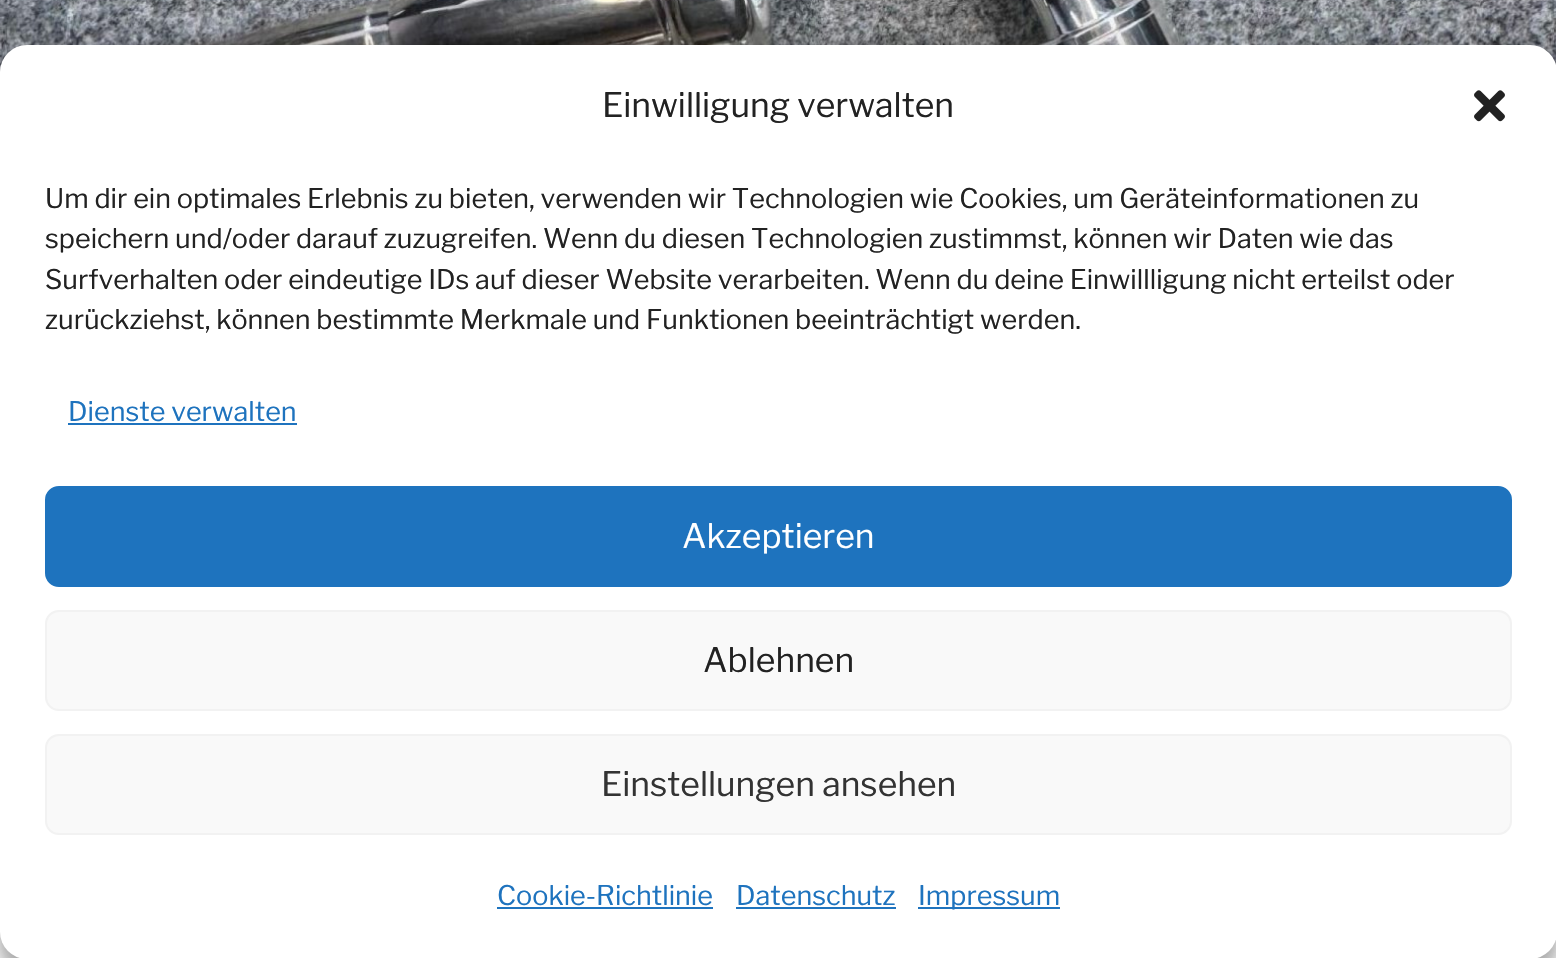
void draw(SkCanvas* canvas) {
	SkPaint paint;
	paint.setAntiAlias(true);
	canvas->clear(0xffffffff);
	canvas->drawImageRect(SkImages::DeferredFromEncodedData(SkData::MakeFromFileName("img1.png")), SkRect::MakeXYWH(0, 0, 1556, 72), SkSamplingOptions());
	{
		const SkColor colors[] = {0x00000000, 0x4d000000, 0x4d000000};
		const float stops[] = {0, 0.75, 1};
		const SkPoint ends[] = {{779, 0}, {779, 360}};
		paint.setShader(SkGradientShader::MakeLinear(ends, colors, stops, 3, SkTileMode::kClamp));
		paint.setAlpha(255);
	}
	canvas->drawRect(SkRect::MakeXYWH(0, 19, 1556, 53), paint);
	paint.setShader(nullptr);
	paint.setColor(0x3b000000);
	paint.setMaskFilter(SkMaskFilter::MakeBlur(kNormal_SkBlurStyle, 7));
	canvas->drawRoundRect(SkRect::MakeXYWH(0, 59, 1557, 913), 27, 27, paint);
	paint.setMaskFilter(nullptr);
	paint.setColor(0x30000000);
	paint.setMaskFilter(SkMaskFilter::MakeBlur(kNormal_SkBlurStyle, 22.5));
	canvas->drawRoundRect(SkRect::MakeXYWH(0, 68, 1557, 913), 27, 27, paint);
	paint.setMaskFilter(nullptr);
	paint.setColor(0xffffffff);
	canvas->drawRoundRect(SkRect::MakeXYWH(0, 45, 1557, 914), 27, 27, paint);
	SkFont f1(fontMgr->matchFamilyStyle("Libre Franklin", SkFontStyle(100, SkFontStyle::kNormal_Width, SkFontStyle::kUpright_Slant)), 33.75);
	f1.setSubpixel(true);
	paint.setColor(0xff222222);
	canvas->drawString("Einwilligung verwalten", 602, 117, f1, paint);
	canvas->drawImageRect(SkImages::DeferredFromEncodedData(SkData::MakeFromFileName("img2.png")), SkRect::MakeXYWH(1474, 90, 31, 32), SkSamplingOptions());
	SkFont f2(fontMgr->matchFamilyStyle("Libre Franklin", SkFontStyle(100, SkFontStyle::kNormal_Width, SkFontStyle::kUpright_Slant)), 27);
	f2.setSubpixel(true);
	canvas->drawString("Um dir ein optimales Erlebnis zu bieten, verwenden wir Technologien wie Cookies, um Geräteinformationen zu", 45, 208, f2, paint);
	canvas->drawString("speichern und/oder darauf zuzugreifen. Wenn du diesen Technologien zustimmst, können wir Daten wie das", 45, 248, f2, paint);
	canvas->drawString("Surfverhalten oder eindeutige IDs auf dieser Website verarbeiten. Wenn du deine Einwillligung nicht erteilst oder", 45, 289, f2, paint);
	canvas->drawString("zurückziehst, können bestimmte Merkmale und Funktionen beeinträchtigt werden.", 45, 329, f2, paint);
	paint.setColor(0xff1e73be);
	canvas->drawString("Dienste verwalten", 68, 421, f2, paint);
	canvas->drawRect(SkRect::MakeXYWH(68, 423, 229, 2), paint);
	canvas->drawRoundRect(SkRect::MakeXYWH(46, 487, 1465, 99), 13, 13, paint);
	paint.setStroke(true);
	paint.setStrokeWidth(2);
	canvas->drawRoundRect(SkRect::MakeXYWH(46, 487, 1465, 99), 13, 13, paint);
	paint.setStroke(false);
	paint.setColor(0xffffffff);
	canvas->drawString("Akzeptieren", 682, 548, f1, paint);
	paint.setColor(0xfff9f9f9);
	canvas->drawRoundRect(SkRect::MakeXYWH(46, 611, 1465, 99), 13, 13, paint);
	paint.setStroke(true);
	paint.setColor(0xfff2f2f2);
	canvas->drawRoundRect(SkRect::MakeXYWH(46, 611, 1465, 99), 13, 13, paint);
	paint.setStroke(false);
	paint.setColor(0xff222222);
	canvas->drawString("Ablehnen", 703, 672, f1, paint);
	paint.setColor(0xfff9f9f9);
	canvas->drawRoundRect(SkRect::MakeXYWH(46, 735, 1465, 99), 13, 13, paint);
	paint.setStroke(true);
	paint.setColor(0xfff2f2f2);
	canvas->drawRoundRect(SkRect::MakeXYWH(46, 735, 1465, 99), 13, 13, paint);
	paint.setStroke(false);
	paint.setColor(0xff333333);
	canvas->drawString("Einstellungen ansehen", 601, 796, f1, paint);
	paint.setColor(0xff1e73be);
	canvas->drawString("Cookie-Richtlinie", 497, 905, f2, paint);
	canvas->drawRect(SkRect::MakeXYWH(497, 907, 216, 2), paint);
	canvas->drawString("Datenschutz", 736, 905, f2, paint);
	canvas->drawRect(SkRect::MakeXYWH(736, 907, 160, 2), paint);
	canvas->drawRect(SkRect::MakeXYWH(918, 907, 142, 2), paint);
	canvas->drawString("Impressum", 918, 905, f2, paint);
}
